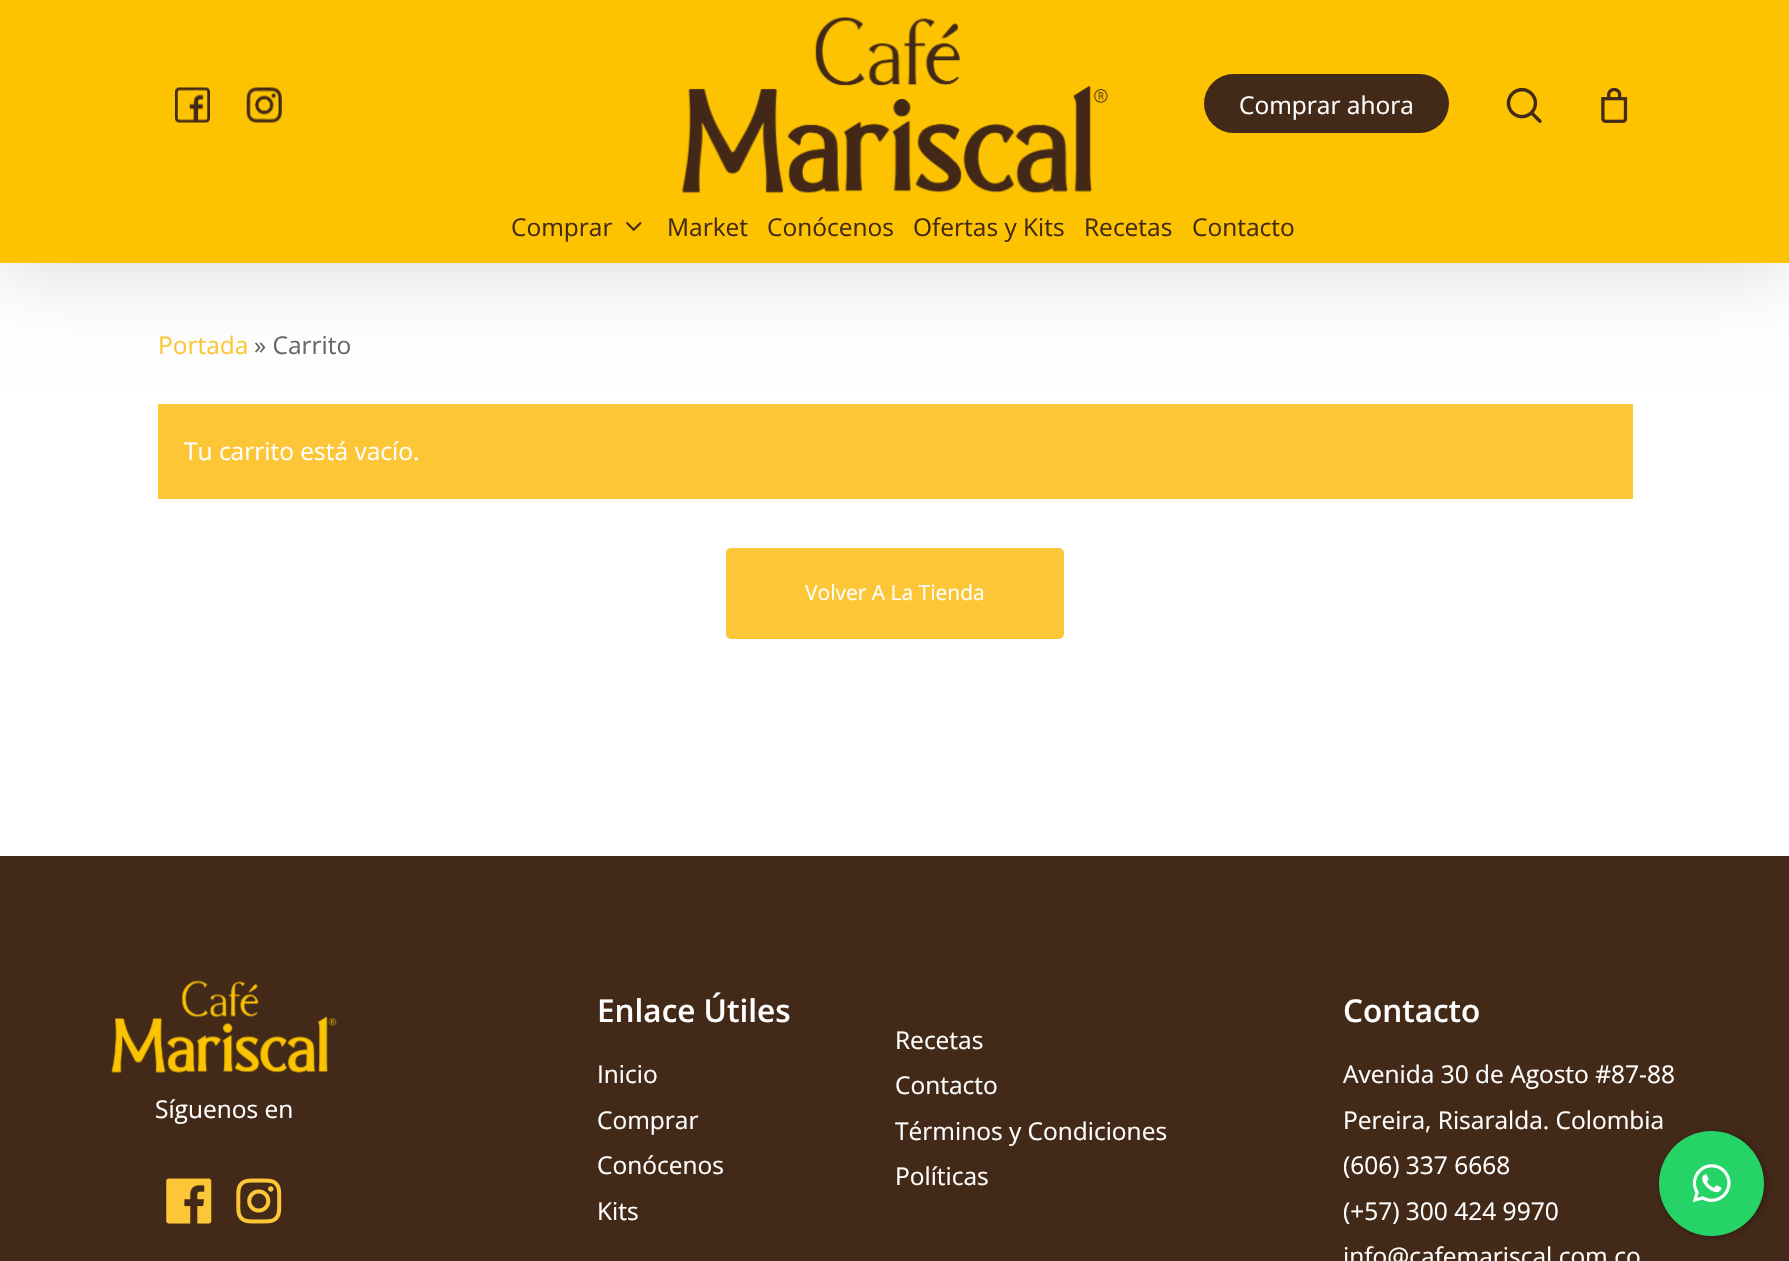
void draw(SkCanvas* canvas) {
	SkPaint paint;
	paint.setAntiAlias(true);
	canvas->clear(0xffffffff);
	paint.setColor(0x26000000);
	paint.setMaskFilter(SkMaskFilter::MakeBlur(kNormal_SkBlurStyle, 39.5));
	canvas->drawRect(SkRect::MakeXYWH(0, 5, 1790, 263), paint);
	paint.setMaskFilter(nullptr);
	paint.setColor(0xfffdc300);
	canvas->drawRect(SkRect::MakeXYWH(0, 0, 1789, 263), paint);
	canvas->drawImageRect(SkImages::DeferredFromEncodedData(SkData::MakeFromFileName("img1.png")), SkRect::MakeXYWH(175, 87, 35, 36), SkSamplingOptions());
	canvas->drawImageRect(SkImages::DeferredFromEncodedData(SkData::MakeFromFileName("img2.png")), SkRect::MakeXYWH(246, 87, 36, 36), SkSamplingOptions());
	canvas->drawImageRect(SkImages::DeferredFromEncodedData(SkData::MakeFromFileName("img3.png")), SkRect::MakeXYWH(681, 17, 427, 176), SkSamplingOptions());
	paint.setColor(0xff432918);
	canvas->drawRoundRect(SkRect::MakeXYWH(1204, 74, 245, 59), 29.5, 29.5, paint);
	SkFont f1(fontMgr->matchFamilyStyle("Open Sans", SkFontStyle::Normal()), 24.5);
	f1.setSubpixel(true);
	paint.setColor(0xffffffff);
	canvas->drawString("Comprar ahora", 1239, 114, f1, paint);
	canvas->drawImageRect(SkImages::DeferredFromEncodedData(SkData::MakeFromFileName("img4.png")), SkRect::MakeXYWH(1506, 87, 36, 36), SkSamplingOptions());
	canvas->drawImageRect(SkImages::DeferredFromEncodedData(SkData::MakeFromFileName("img5.png")), SkRect::MakeXYWH(1601, 87, 27, 36), SkSamplingOptions());
	paint.setColor(0xff432918);
	canvas->drawString("Comprar", 511, 236, f1, paint);
	canvas->drawImageRect(SkImages::DeferredFromEncodedData(SkData::MakeFromFileName("img6.png")), SkRect::MakeXYWH(626, 222, 16, 9), SkSamplingOptions());
	canvas->drawString("Market", 667, 236, f1, paint);
	canvas->drawString("Conócenos", 767, 236, f1, paint);
	canvas->drawString("Ofertas y Kits", 913, 236, f1, paint);
	canvas->drawString("Recetas", 1084, 236, f1, paint);
	canvas->drawString("Contacto", 1192, 236, f1, paint);
	paint.setColor(0xfffdc637);
	canvas->drawString("Portada", 158, 354, f1, paint);
	paint.setColor(0xff676767);
	canvas->drawString("» Carrito", 254, 354, f1, paint);
	paint.setColor(0xfffdc637);
	canvas->drawRect(SkRect::MakeXYWH(158, 404, 1475, 95), paint);
	paint.setColor(0xffffffff);
	canvas->drawString("Tu carrito está vacío.", 184, 460, f1, paint);
	paint.setColor(0xfffdc637);
	canvas->drawRoundRect(SkRect::MakeXYWH(726, 548, 338, 91), 5, 5, paint);
	SkFont f2(fontMgr->matchFamilyStyle("Open Sans", SkFontStyle::Normal()), 21);
	f2.setSubpixel(true);
	paint.setColor(0xffffffff);
	canvas->drawString("Volver A La Tienda", 805, 600, f2, paint);
	paint.setColor(0xff432918);
	canvas->drawRect(SkRect::MakeXYWH(0, 856, 1789, 405), paint);
	canvas->drawImageRect(SkImages::DeferredFromEncodedData(SkData::MakeFromFileName("img7.png")), SkRect::MakeXYWH(111, 980, 226, 93), SkSamplingOptions());
	paint.setColor(0xffffffff);
	canvas->drawString("Síguenos en", 155, 1118, f1, paint);
	canvas->drawImageRect(SkImages::DeferredFromEncodedData(SkData::MakeFromFileName("img8.png")), SkRect::MakeXYWH(166, 1178, 46, 46), SkSamplingOptions());
	canvas->drawImageRect(SkImages::DeferredFromEncodedData(SkData::MakeFromFileName("img9.png")), SkRect::MakeXYWH(236, 1178, 46, 46), SkSamplingOptions());
	SkFont f3(fontMgr->matchFamilyStyle("Open Sans", SkFontStyle(600, SkFontStyle::kNormal_Width, SkFontStyle::kUpright_Slant)), 31.5);
	f3.setSubpixel(true);
	canvas->drawString("Enlace Útiles", 597, 1022, f3, paint);
	canvas->drawString("Inicio", 597, 1083, f1, paint);
	canvas->drawString("Comprar", 597, 1129, f1, paint);
	canvas->drawString("Conócenos", 597, 1174, f1, paint);
	canvas->drawString("Kits", 597, 1220, f1, paint);
	canvas->drawString("Recetas", 895, 1049, f1, paint);
	canvas->drawString("Contacto", 895, 1094, f1, paint);
	canvas->drawString("Términos y Condiciones", 895, 1140, f1, paint);
	canvas->drawString("Políticas", 895, 1185, f1, paint);
	canvas->drawString("Contacto", 1343, 1022, f3, paint);
	canvas->drawString("Avenida 30 de Agosto #87-88", 1343, 1083, f1, paint);
	canvas->drawString("Pereira, Risaralda. Colombia", 1343, 1129, f1, paint);
	canvas->drawString("(606) 337 6668", 1343, 1174, f1, paint);
	canvas->drawString("(+57) 300 424 9970", 1343, 1220, f1, paint);
	canvas->drawString("info@cafemariscal.com.co", 1343, 1265, f1, paint);
	paint.setColor(0x4d000000);
	paint.setMaskFilter(SkMaskFilter::MakeBlur(kNormal_SkBlurStyle, 3.5));
	canvas->drawRoundRect(SkRect::MakeXYWH(1661, 1132, 105, 105), 52.5, 52.5, paint);
	paint.setMaskFilter(nullptr);
	paint.setColor(0xff25d366);
	canvas->drawCircle(1711.5, 1183.5, 52.5, paint);
	canvas->drawImageRect(SkImages::DeferredFromEncodedData(SkData::MakeFromFileName("img10.png")), SkRect::MakeXYWH(1692, 1164, 39, 39), SkSamplingOptions());
}
